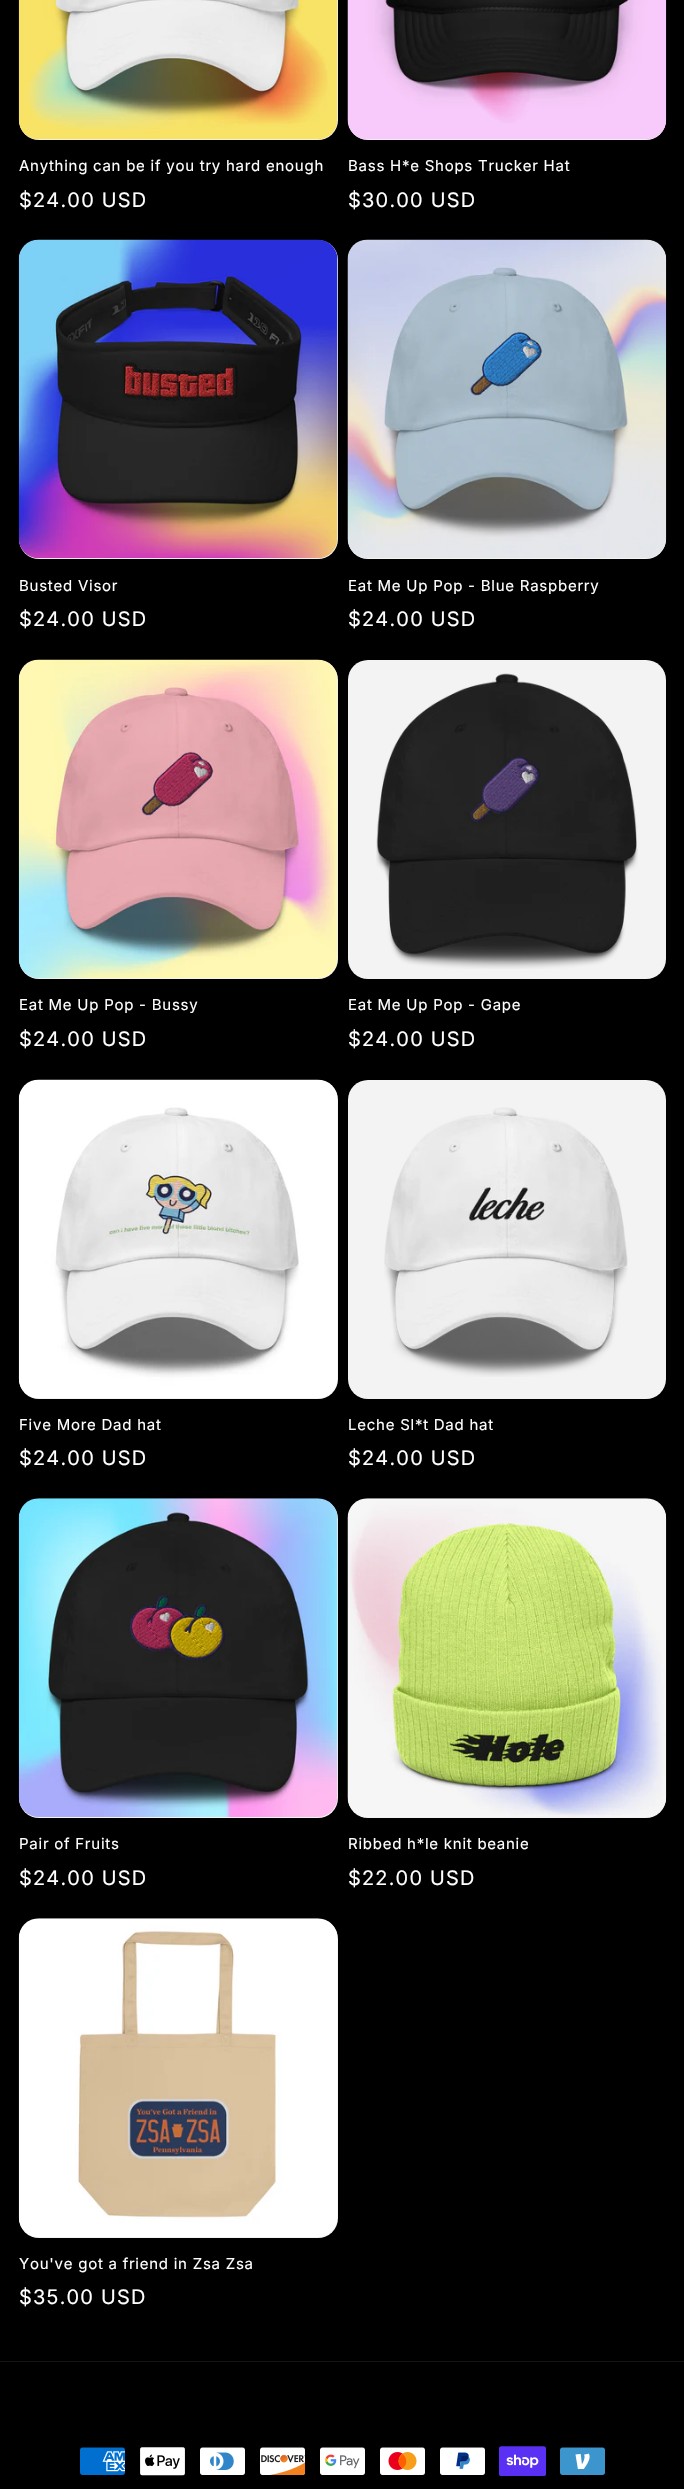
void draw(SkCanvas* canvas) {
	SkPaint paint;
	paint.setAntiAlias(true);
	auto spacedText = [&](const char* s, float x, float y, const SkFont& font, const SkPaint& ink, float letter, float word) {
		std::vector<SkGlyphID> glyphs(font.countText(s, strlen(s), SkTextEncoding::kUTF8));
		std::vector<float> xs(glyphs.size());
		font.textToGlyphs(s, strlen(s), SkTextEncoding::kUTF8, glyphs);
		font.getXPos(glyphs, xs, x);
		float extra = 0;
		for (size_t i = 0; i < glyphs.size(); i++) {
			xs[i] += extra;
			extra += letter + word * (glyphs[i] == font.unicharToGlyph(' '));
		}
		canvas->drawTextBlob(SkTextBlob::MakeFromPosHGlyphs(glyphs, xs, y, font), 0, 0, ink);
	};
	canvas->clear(0xff000000);
	paint.setColor(0xfff3f3f3);
	canvas->drawRoundRect(SkRect::MakeXYWH(19, -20, 319, 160), 20, 20, paint);
	canvas->drawImageRect(SkImages::DeferredFromEncodedData(SkData::MakeFromFileName("img1.png")), SkRect::MakeXYWH(18, 0, 320, 140), SkSamplingOptions());
	SkFont f1(fontMgr->matchFamilyStyle("Inter", SkFontStyle::Normal()), 15);
	f1.setSubpixel(true);
	paint.setColor(0xffffffff);
	spacedText("Anything can be if you try hard enough", 19, 171, f1, paint, 0.75, 0);
	SkFont f2(fontMgr->matchFamilyStyle("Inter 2", SkFontStyle::Normal()), 20);
	f2.setSubpixel(true);
	spacedText("$24.00 USD", 19, 207, f2, paint, 1.25, 0);
	paint.setColor(0xfff3f3f3);
	canvas->drawRoundRect(SkRect::MakeXYWH(348, -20, 318, 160), 20, 20, paint);
	canvas->drawImageRect(SkImages::DeferredFromEncodedData(SkData::MakeFromFileName("img2.png")), SkRect::MakeXYWH(347, 0, 320, 140), SkSamplingOptions());
	paint.setColor(0xffffffff);
	spacedText("Bass H*e Shops Trucker Hat", 348, 171, f1, paint, 0.75, 0);
	spacedText("$30.00 USD", 348, 207, f2, paint, 1.25, 0);
	paint.setColor(0xfff3f3f3);
	canvas->drawRoundRect(SkRect::MakeXYWH(19, 240, 319, 319), 20, 20, paint);
	canvas->drawImageRect(SkImages::DeferredFromEncodedData(SkData::MakeFromFileName("img3.png")), SkRect::MakeXYWH(18, 239, 320, 320), SkSamplingOptions());
	paint.setColor(0xffffffff);
	spacedText("Busted Visor", 19, 591, f1, paint, 0.75, 0);
	spacedText("$24.00 USD", 19, 626, f2, paint, 1.25, 0);
	paint.setColor(0xfff3f3f3);
	canvas->drawRoundRect(SkRect::MakeXYWH(348, 240, 318, 319), 20, 20, paint);
	canvas->drawImageRect(SkImages::DeferredFromEncodedData(SkData::MakeFromFileName("img4.png")), SkRect::MakeXYWH(347, 239, 320, 319), SkSamplingOptions());
	paint.setColor(0xffffffff);
	spacedText("Eat Me Up Pop - Blue Raspberry", 348, 591, f1, paint, 0.75, 0);
	spacedText("$24.00 USD", 348, 626, f2, paint, 1.25, 0);
	paint.setColor(0xfff3f3f3);
	canvas->drawRoundRect(SkRect::MakeXYWH(19, 660, 319, 319), 20, 20, paint);
	canvas->drawImageRect(SkImages::DeferredFromEncodedData(SkData::MakeFromFileName("img5.png")), SkRect::MakeXYWH(18, 659, 320, 320), SkSamplingOptions());
	paint.setColor(0xffffffff);
	spacedText("Eat Me Up Pop - Bussy", 19, 1010, f1, paint, 0.75, 0);
	spacedText("$24.00 USD", 19, 1046, f2, paint, 1.25, 0);
	paint.setColor(0xfff3f3f3);
	canvas->drawRoundRect(SkRect::MakeXYWH(348, 660, 318, 319), 20, 20, paint);
	canvas->drawImageRect(SkImages::DeferredFromEncodedData(SkData::MakeFromFileName("img6.png")), SkRect::MakeXYWH(376, 673, 262, 296), SkSamplingOptions());
	paint.setColor(0xffffffff);
	spacedText("Eat Me Up Pop - Gape", 348, 1010, f1, paint, 0.75, 0);
	spacedText("$24.00 USD", 348, 1046, f2, paint, 1.25, 0);
	paint.setColor(0xfff3f3f3);
	canvas->drawRoundRect(SkRect::MakeXYWH(19, 1080, 319, 319), 20, 20, paint);
	canvas->drawImageRect(SkImages::DeferredFromEncodedData(SkData::MakeFromFileName("img7.png")), SkRect::MakeXYWH(18, 1079, 320, 319), SkSamplingOptions());
	paint.setColor(0xffffffff);
	spacedText("Five More Dad hat", 19, 1430, f1, paint, 0.75, 0);
	spacedText("$24.00 USD", 19, 1465, f2, paint, 1.25, 0);
	paint.setColor(0xfff3f3f3);
	canvas->drawRoundRect(SkRect::MakeXYWH(348, 1080, 318, 319), 20, 20, paint);
	canvas->drawImageRect(SkImages::DeferredFromEncodedData(SkData::MakeFromFileName("img8.png")), SkRect::MakeXYWH(384, 1107, 244, 270), SkSamplingOptions());
	paint.setColor(0xffffffff);
	spacedText("Leche Sl*t Dad hat", 348, 1430, f1, paint, 0.75, 0);
	spacedText("$24.00 USD", 348, 1465, f2, paint, 1.25, 0);
	paint.setColor(0xfff3f3f3);
	canvas->drawRoundRect(SkRect::MakeXYWH(19, 1499, 319, 319), 20, 20, paint);
	canvas->drawImageRect(SkImages::DeferredFromEncodedData(SkData::MakeFromFileName("img9.png")), SkRect::MakeXYWH(18, 1498, 320, 319), SkSamplingOptions());
	paint.setColor(0xffffffff);
	spacedText("Pair of Fruits", 19, 1849, f1, paint, 0.75, 0);
	spacedText("$24.00 USD", 19, 1885, f2, paint, 1.25, 0);
	paint.setColor(0xfff3f3f3);
	canvas->drawRoundRect(SkRect::MakeXYWH(348, 1499, 318, 319), 20, 20, paint);
	canvas->drawImageRect(SkImages::DeferredFromEncodedData(SkData::MakeFromFileName("img10.png")), SkRect::MakeXYWH(347, 1498, 320, 319), SkSamplingOptions());
	paint.setColor(0xffffffff);
	spacedText("Ribbed h*le knit beanie", 348, 1849, f1, paint, 0.75, 0);
	spacedText("$22.00 USD", 348, 1885, f2, paint, 1.25, 0);
	paint.setColor(0xfff3f3f3);
	canvas->drawRoundRect(SkRect::MakeXYWH(19, 1919, 319, 319), 20, 20, paint);
	canvas->drawImageRect(SkImages::DeferredFromEncodedData(SkData::MakeFromFileName("img11.png")), SkRect::MakeXYWH(18, 1918, 320, 319), SkSamplingOptions());
	paint.setColor(0xffffffff);
	spacedText("You've got a friend in Zsa Zsa", 19, 2269, f1, paint, 0.75, 0);
	spacedText("$35.00 USD", 19, 2304, f2, paint, 1.25, 0);
	paint.setColor(0xff141414);
	canvas->drawRect(SkRect::MakeXYWH(0, 2361, 684, 1), paint);
	canvas->drawImageRect(SkImages::DeferredFromEncodedData(SkData::MakeFromFileName("img12.png")), SkRect::MakeXYWH(80, 2447, 45, 28), SkSamplingOptions());
	canvas->drawImageRect(SkImages::DeferredFromEncodedData(SkData::MakeFromFileName("img13.png")), SkRect::MakeXYWH(140, 2447, 45, 29), SkSamplingOptions());
	canvas->drawImageRect(SkImages::DeferredFromEncodedData(SkData::MakeFromFileName("img14.png")), SkRect::MakeXYWH(200, 2447, 45, 28), SkSamplingOptions());
	canvas->drawImageRect(SkImages::DeferredFromEncodedData(SkData::MakeFromFileName("img15.png")), SkRect::MakeXYWH(260, 2447, 46, 28), SkSamplingOptions());
	canvas->drawImageRect(SkImages::DeferredFromEncodedData(SkData::MakeFromFileName("img16.png")), SkRect::MakeXYWH(320, 2447, 45, 28), SkSamplingOptions());
	canvas->drawImageRect(SkImages::DeferredFromEncodedData(SkData::MakeFromFileName("img17.png")), SkRect::MakeXYWH(380, 2447, 45, 28), SkSamplingOptions());
	canvas->drawImageRect(SkImages::DeferredFromEncodedData(SkData::MakeFromFileName("img18.png")), SkRect::MakeXYWH(440, 2447, 45, 28), SkSamplingOptions());
	canvas->drawImageRect(SkImages::DeferredFromEncodedData(SkData::MakeFromFileName("img19.png")), SkRect::MakeXYWH(499, 2446, 47, 30), SkSamplingOptions());
	canvas->drawImageRect(SkImages::DeferredFromEncodedData(SkData::MakeFromFileName("img20.png")), SkRect::MakeXYWH(560, 2447, 45, 28), SkSamplingOptions());
}
